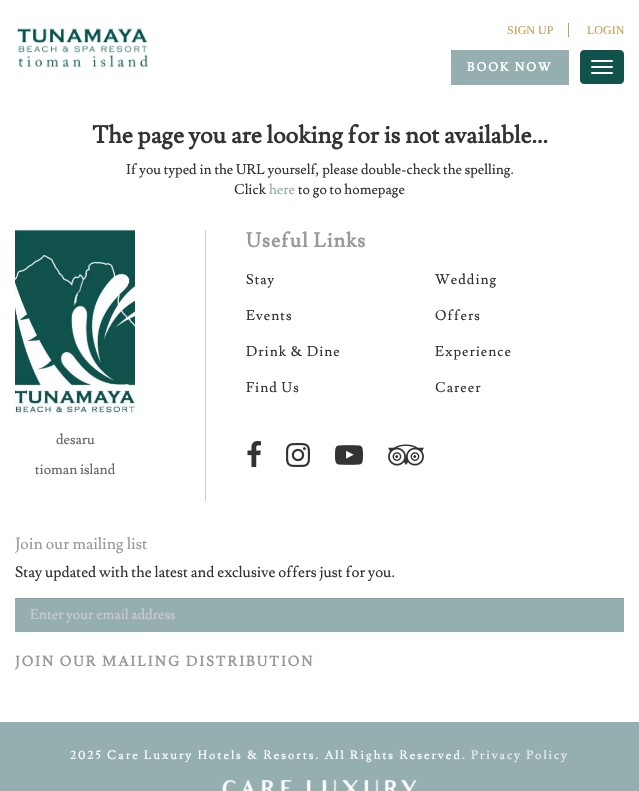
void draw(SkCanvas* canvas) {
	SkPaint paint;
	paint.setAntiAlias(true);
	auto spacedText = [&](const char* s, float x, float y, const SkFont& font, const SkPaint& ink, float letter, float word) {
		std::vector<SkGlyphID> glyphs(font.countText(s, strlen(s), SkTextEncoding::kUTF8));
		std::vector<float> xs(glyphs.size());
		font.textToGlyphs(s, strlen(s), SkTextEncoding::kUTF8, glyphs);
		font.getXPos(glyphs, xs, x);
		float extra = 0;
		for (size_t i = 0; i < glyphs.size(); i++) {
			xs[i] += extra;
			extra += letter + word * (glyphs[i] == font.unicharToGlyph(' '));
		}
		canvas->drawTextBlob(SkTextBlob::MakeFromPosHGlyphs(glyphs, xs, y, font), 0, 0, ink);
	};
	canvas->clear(0xffffffff);
	paint.setColor(0xffc39d53);
	canvas->drawRect(SkRect::MakeXYWH(568, 23, 1, 14), paint);
	SkFont f1(fontMgr->matchFamilyStyle("Liberation Serif", SkFontStyle::Normal()), 12);
	f1.setSubpixel(true);
	canvas->drawString("SIGN UP", 507, 34, f1, paint);
	canvas->drawString("LOGIN", 587, 34, f1, paint);
	paint.setColor(0xff95afb0);
	canvas->drawRect(SkRect::MakeXYWH(451, 50, 118, 35), paint);
	SkFont f2(fontMgr->matchFamilyStyle("Lusitana", SkFontStyle::Bold()), 12);
	f2.setSubpixel(true);
	paint.setColor(0xffffffff);
	spacedText("BOOK NOW", 467, 71, f2, paint, 2, 0);
	canvas->drawImageRect(SkImages::DeferredFromEncodedData(SkData::MakeFromFileName("img1.png")), SkRect::MakeXYWH(17, 28, 131, 40), SkSamplingOptions());
	paint.setColor(0xff11524c);
	canvas->drawRoundRect(SkRect::MakeXYWH(580.5, 50.5, 43, 33), 3.5, 3.5, paint);
	paint.setStroke(true);
	paint.setStrokeWidth(1);
	canvas->drawRoundRect(SkRect::MakeXYWH(580.5, 50.5, 43, 33), 3.5, 3.5, paint);
	paint.setStroke(false);
	paint.setColor(0xffffffff);
	canvas->drawRoundRect(SkRect::MakeXYWH(591, 60, 22, 2), 1, 1, paint);
	canvas->drawRoundRect(SkRect::MakeXYWH(591, 66, 22, 2), 1, 1, paint);
	canvas->drawRoundRect(SkRect::MakeXYWH(591, 72, 22, 2), 1, 1, paint);
	SkFont f3(fontMgr->matchFamilyStyle("Lusitana", SkFontStyle::Bold()), 24);
	f3.setSubpixel(true);
	paint.setColor(0xff333333);
	canvas->drawString("The page you are looking for is not available...", 92, 143, f3, paint);
	SkFont f4(fontMgr->matchFamilyStyle("Lusitana", SkFontStyle::Normal()), 14);
	f4.setSubpixel(true);
	canvas->drawString("If you typed in the URL yourself, please double-check the spelling.", 126, 174, f4, paint);
	canvas->drawString("Click", 234, 194, f4, paint);
	paint.setColor(0xff95afb0);
	canvas->drawString("here", 269, 194, f4, paint);
	paint.setColor(0xff333333);
	canvas->drawString("to go to homepage", 298, 194, f4, paint);
	paint.setColor(0xffcccccc);
	canvas->drawRect(SkRect::MakeXYWH(205, 230, 1, 271), paint);
	SkFont f5(fontMgr->matchFamilyStyle("Lusitana", SkFontStyle::Bold()), 20);
	f5.setSubpixel(true);
	paint.setColor(0xff999999);
	spacedText("Useful Links", 246, 247, f5, paint, 1, 0);
	paint.setColor(0xff333333);
	spacedText("Stay", 246, 284, f4, paint, 1, 0);
	spacedText("Wedding", 435, 284, f4, paint, 1, 0);
	spacedText("Events", 246, 320, f4, paint, 1, 0);
	spacedText("Offers", 435, 320, f4, paint, 1, 0);
	spacedText("Drink & Dine", 246, 356, f4, paint, 1, 0);
	spacedText("Experience", 435, 356, f4, paint, 1, 0);
	spacedText("Find Us", 246, 392, f4, paint, 1, 0);
	spacedText("Career", 435, 392, f4, paint, 1, 0);
	canvas->drawImageRect(SkImages::DeferredFromEncodedData(SkData::MakeFromFileName("img2.png")), SkRect::MakeXYWH(247, 441, 14, 26), SkSamplingOptions());
	canvas->drawImageRect(SkImages::DeferredFromEncodedData(SkData::MakeFromFileName("img3.png")), SkRect::MakeXYWH(286, 443, 24, 24), SkSamplingOptions());
	canvas->drawImageRect(SkImages::DeferredFromEncodedData(SkData::MakeFromFileName("img4.png")), SkRect::MakeXYWH(335, 445, 28, 20), SkSamplingOptions());
	canvas->drawImageRect(SkImages::DeferredFromEncodedData(SkData::MakeFromFileName("img5.png")), SkRect::MakeXYWH(388, 444, 36, 22), SkSamplingOptions());
	canvas->drawImageRect(SkImages::DeferredFromEncodedData(SkData::MakeFromFileName("img6.png")), SkRect::MakeXYWH(15, 229, 120, 186), SkSamplingOptions());
	paint.setColor(0xff666666);
	canvas->drawString("desaru", 56, 444, f4, paint);
	canvas->drawString("tioman island", 35, 474, f4, paint);
	SkFont f6(fontMgr->matchFamilyStyle("Lusitana", SkFontStyle::Normal()), 16);
	f6.setSubpixel(true);
	paint.setColor(0xff999999);
	canvas->drawString("Join our mailing list", 15, 549, f6, paint);
	SkFont f7(fontMgr->matchFamilyStyle("Lusitana", SkFontStyle::Normal()), 15);
	f7.setSubpixel(true);
	paint.setColor(0xff333333);
	canvas->drawString("Stay updated with the latest and exclusive offers just for you.", 15, 577, f7, paint);
	paint.setColor(0xff95afb0);
	canvas->drawRect(SkRect::MakeXYWH(15, 599, 609, 33), paint);
	paint.setColor(0xff8aa2a3);
	canvas->drawRect(SkRect::MakeXYWH(15, 598, 609, 1), paint);
	paint.setColor(0xffcccccc);
	canvas->drawString("Enter your email address", 30, 619, f4, paint);
	SkFont f8(fontMgr->matchFamilyStyle("Lusitana", SkFontStyle::Bold()), 14);
	f8.setSubpixel(true);
	paint.setColor(0xff999999);
	spacedText("JOIN OUR MAILING DISTRIBUTION", 15, 666, f8, paint, 2, 0);
	paint.setColor(0xff95afb0);
	canvas->drawRect(SkRect::MakeXYWH(0, 722, 639, 69), paint);
	SkFont f9(fontMgr->matchFamilyStyle("Lusitana", SkFontStyle::Normal()), 12);
	f9.setSubpixel(true);
	paint.setColor(0xffffffff);
	spacedText("2025 Care Luxury Hotels & Resorts. All Rights Reserved.", 70, 759, f9, paint, 2, 0);
	paint.setColor(0xffeeeeee);
	spacedText("Privacy Policy", 471, 759, f9, paint, 2, 0);
	canvas->drawImageRect(SkImages::DeferredFromEncodedData(SkData::MakeFromFileName("img7.png")), SkRect::MakeXYWH(222, 780, 195, 11), SkSamplingOptions());
}
